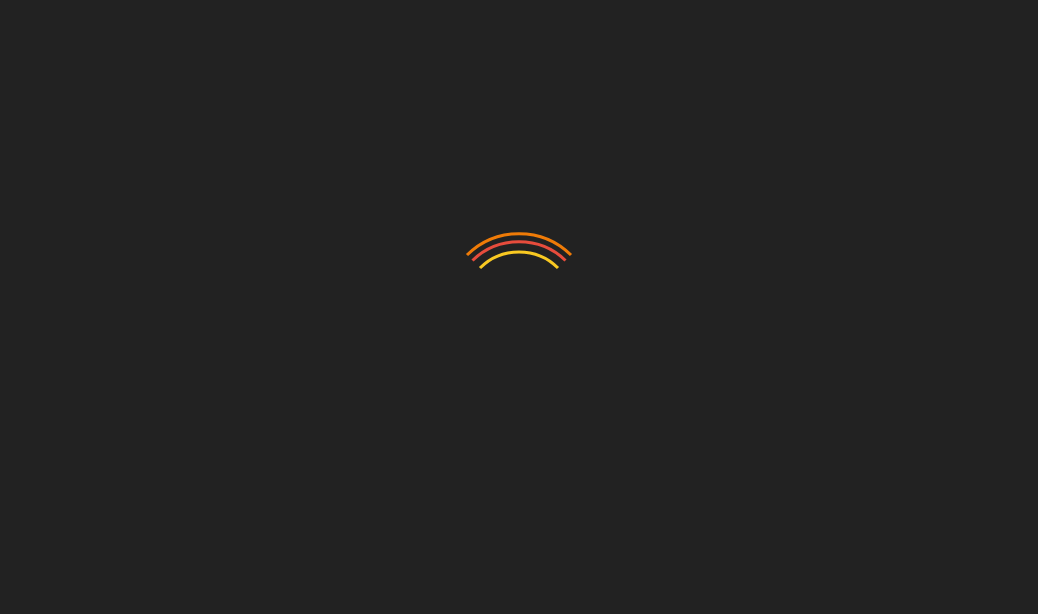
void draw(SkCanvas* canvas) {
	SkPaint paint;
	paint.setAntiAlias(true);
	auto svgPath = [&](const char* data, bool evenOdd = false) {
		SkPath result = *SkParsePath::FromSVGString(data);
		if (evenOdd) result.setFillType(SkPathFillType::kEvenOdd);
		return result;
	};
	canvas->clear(0xff222222);
	paint.setStroke(true);
	paint.setStrokeWidth(3);
	paint.setColor(0xffef7b07);
	canvas->drawPath(svgPath("M467 255C495.5 226.5 542.5 226.5 571 255"), paint);
	paint.setColor(0xffe74c3c);
	canvas->drawPath(svgPath("M472.5 260.5C498 235.5 540 235.5 565.5 260.5"), paint);
	paint.setColor(0xfff9c922);
	canvas->drawPath(svgPath("M480 268C501 246.5 537 246.5 558 268"), paint);
}
